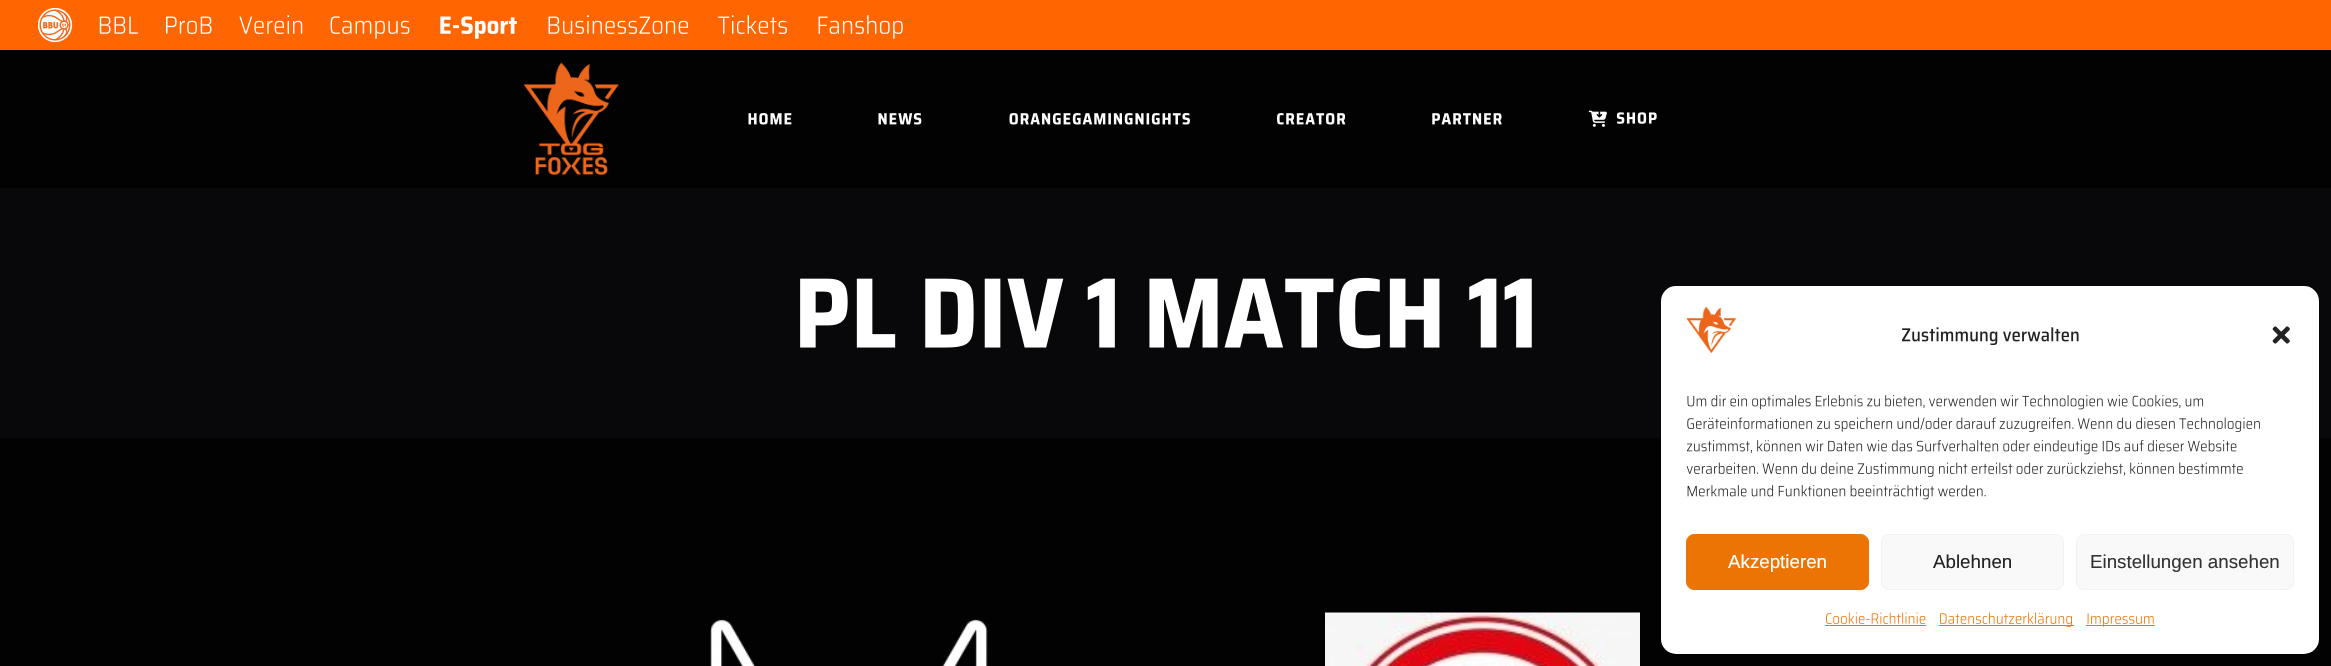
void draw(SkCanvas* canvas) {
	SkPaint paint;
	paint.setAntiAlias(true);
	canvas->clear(0xff020202);
	paint.setColor(0xffff6500);
	canvas->drawRect(SkRect::MakeXYWH(0, 0, 2331, 50), paint);
	canvas->drawImageRect(SkImages::DeferredFromEncodedData(SkData::MakeFromFileName("img1.png")), SkRect::MakeXYWH(38, 8, 35, 35), SkSamplingOptions());
	canvas->drawImageRect(SkImages::DeferredFromEncodedData(SkData::MakeFromFileName("img2.png")), SkRect::MakeXYWH(99, 16, 39, 18), SkSamplingOptions());
	canvas->drawImageRect(SkImages::DeferredFromEncodedData(SkData::MakeFromFileName("img3.png")), SkRect::MakeXYWH(166, 16, 46, 18), SkSamplingOptions());
	canvas->drawImageRect(SkImages::DeferredFromEncodedData(SkData::MakeFromFileName("img4.png")), SkRect::MakeXYWH(239, 15, 64, 19), SkSamplingOptions());
	canvas->drawImageRect(SkImages::DeferredFromEncodedData(SkData::MakeFromFileName("img5.png")), SkRect::MakeXYWH(330, 16, 80, 23), SkSamplingOptions());
	canvas->drawImageRect(SkImages::DeferredFromEncodedData(SkData::MakeFromFileName("img6.png")), SkRect::MakeXYWH(440, 16, 77, 23), SkSamplingOptions());
	canvas->drawImageRect(SkImages::DeferredFromEncodedData(SkData::MakeFromFileName("img7.png")), SkRect::MakeXYWH(548, 15, 140, 19), SkSamplingOptions());
	canvas->drawImageRect(SkImages::DeferredFromEncodedData(SkData::MakeFromFileName("img8.png")), SkRect::MakeXYWH(718, 15, 69, 19), SkSamplingOptions());
	canvas->drawImageRect(SkImages::DeferredFromEncodedData(SkData::MakeFromFileName("img9.png")), SkRect::MakeXYWH(818, 15, 85, 24), SkSamplingOptions());
	canvas->drawImageRect(SkImages::DeferredFromEncodedData(SkData::MakeFromFileName("img10.png")), SkRect::MakeXYWH(523, 62, 96, 113), SkSamplingOptions());
	canvas->drawImageRect(SkImages::DeferredFromEncodedData(SkData::MakeFromFileName("img11.png")), SkRect::MakeXYWH(748, 113, 44, 12), SkSamplingOptions());
	canvas->drawImageRect(SkImages::DeferredFromEncodedData(SkData::MakeFromFileName("img12.png")), SkRect::MakeXYWH(878, 113, 44, 12), SkSamplingOptions());
	canvas->drawImageRect(SkImages::DeferredFromEncodedData(SkData::MakeFromFileName("img13.png")), SkRect::MakeXYWH(1009, 113, 181, 12), SkSamplingOptions());
	canvas->drawImageRect(SkImages::DeferredFromEncodedData(SkData::MakeFromFileName("img14.png")), SkRect::MakeXYWH(1277, 113, 69, 12), SkSamplingOptions());
	canvas->drawImageRect(SkImages::DeferredFromEncodedData(SkData::MakeFromFileName("img15.png")), SkRect::MakeXYWH(1432, 113, 70, 12), SkSamplingOptions());
	canvas->drawImageRect(SkImages::DeferredFromEncodedData(SkData::MakeFromFileName("img16.png")), SkRect::MakeXYWH(1588, 110, 19, 17), SkSamplingOptions());
	canvas->drawImageRect(SkImages::DeferredFromEncodedData(SkData::MakeFromFileName("img17.png")), SkRect::MakeXYWH(1616, 112, 41, 12), SkSamplingOptions());
	paint.setColor(0xff08080a);
	canvas->drawRect(SkRect::MakeXYWH(0, 188, 2331, 250), paint);
	canvas->drawImageRect(SkImages::DeferredFromEncodedData(SkData::MakeFromFileName("img18.png")), SkRect::MakeXYWH(800, 277, 732, 72), SkSamplingOptions());
	canvas->drawImageRect(SkImages::DeferredFromEncodedData(SkData::MakeFromFileName("img19.png")), SkRect::MakeXYWH(710, 619, 278, 47), SkSamplingOptions());
	canvas->drawImageRect(SkImages::DeferredFromEncodedData(SkData::MakeFromFileName("img20.png")), SkRect::MakeXYWH(1325, 612, 315, 54), SkSamplingOptions());
	paint.setColor(0xffffffff);
	canvas->drawRoundRect(SkRect::MakeXYWH(1661, 286, 658, 368), 15, 15, paint);
	canvas->drawImageRect(SkImages::DeferredFromEncodedData(SkData::MakeFromFileName("img21.png")), SkRect::MakeXYWH(1686, 306, 51, 48), SkSamplingOptions());
	canvas->drawImageRect(SkImages::DeferredFromEncodedData(SkData::MakeFromFileName("img22.png")), SkRect::MakeXYWH(1902, 327, 177, 19), SkSamplingOptions());
	canvas->drawImageRect(SkImages::DeferredFromEncodedData(SkData::MakeFromFileName("img23.png")), SkRect::MakeXYWH(2272, 326, 18, 18), SkSamplingOptions());
	canvas->drawImageRect(SkImages::DeferredFromEncodedData(SkData::MakeFromFileName("img24.png")), SkRect::MakeXYWH(1687, 395, 517, 15), SkSamplingOptions());
	canvas->drawImageRect(SkImages::DeferredFromEncodedData(SkData::MakeFromFileName("img25.png")), SkRect::MakeXYWH(1687, 417, 573, 15), SkSamplingOptions());
	canvas->drawImageRect(SkImages::DeferredFromEncodedData(SkData::MakeFromFileName("img26.png")), SkRect::MakeXYWH(1686, 440, 551, 15), SkSamplingOptions());
	canvas->drawImageRect(SkImages::DeferredFromEncodedData(SkData::MakeFromFileName("img27.png")), SkRect::MakeXYWH(1686, 462, 557, 15), SkSamplingOptions());
	canvas->drawImageRect(SkImages::DeferredFromEncodedData(SkData::MakeFromFileName("img28.png")), SkRect::MakeXYWH(1687, 485, 299, 15), SkSamplingOptions());
	paint.setColor(0xffec7404);
	canvas->drawRoundRect(SkRect::MakeXYWH(1686.5, 534.5, 182, 55), 7.5, 7.5, paint);
	paint.setStroke(true);
	paint.setStrokeWidth(1);
	canvas->drawRoundRect(SkRect::MakeXYWH(1686.5, 534.5, 182, 55), 7.5, 7.5, paint);
	SkFont f1(fontMgr->matchFamilyStyle("Liberation Sans", SkFontStyle::Normal()), 18.75);
	f1.setSubpixel(true);
	paint.setStroke(false);
	paint.setColor(0xffffffff);
	canvas->drawString("Akzeptieren", 1728, 568, f1, paint);
	paint.setColor(0xfff9f9f9);
	canvas->drawRoundRect(SkRect::MakeXYWH(1881.5, 534.5, 182, 55), 7.5, 7.5, paint);
	paint.setStroke(true);
	paint.setColor(0xfff2f2f2);
	canvas->drawRoundRect(SkRect::MakeXYWH(1881.5, 534.5, 182, 55), 7.5, 7.5, paint);
	paint.setStroke(false);
	paint.setColor(0xff222222);
	canvas->drawString("Ablehnen", 1933, 568, f1, paint);
	paint.setColor(0xfff9f9f9);
	canvas->drawRoundRect(SkRect::MakeXYWH(2076.5, 534.5, 217, 55), 7.5, 7.5, paint);
	paint.setStroke(true);
	paint.setColor(0xfff2f2f2);
	canvas->drawRoundRect(SkRect::MakeXYWH(2076.5, 534.5, 217, 55), 7.5, 7.5, paint);
	paint.setStroke(false);
	paint.setColor(0xff333333);
	canvas->drawString("Einstellungen ansehen", 2090, 568, f1, paint);
	canvas->drawImageRect(SkImages::DeferredFromEncodedData(SkData::MakeFromFileName("img29.png")), SkRect::MakeXYWH(1826, 612, 100, 12), SkSamplingOptions());
	paint.setColor(0xffec7404);
	canvas->drawRect(SkRect::MakeXYWH(1825, 625, 101, 1), paint);
	canvas->drawRect(SkRect::MakeXYWH(1939, 625, 135, 1), paint);
	canvas->drawImageRect(SkImages::DeferredFromEncodedData(SkData::MakeFromFileName("img30.png")), SkRect::MakeXYWH(1940, 612, 132, 15), SkSamplingOptions());
	canvas->drawRect(SkRect::MakeXYWH(2086, 625, 69, 1), paint);
	canvas->drawImageRect(SkImages::DeferredFromEncodedData(SkData::MakeFromFileName("img31.png")), SkRect::MakeXYWH(2087, 613, 67, 14), SkSamplingOptions());
}
